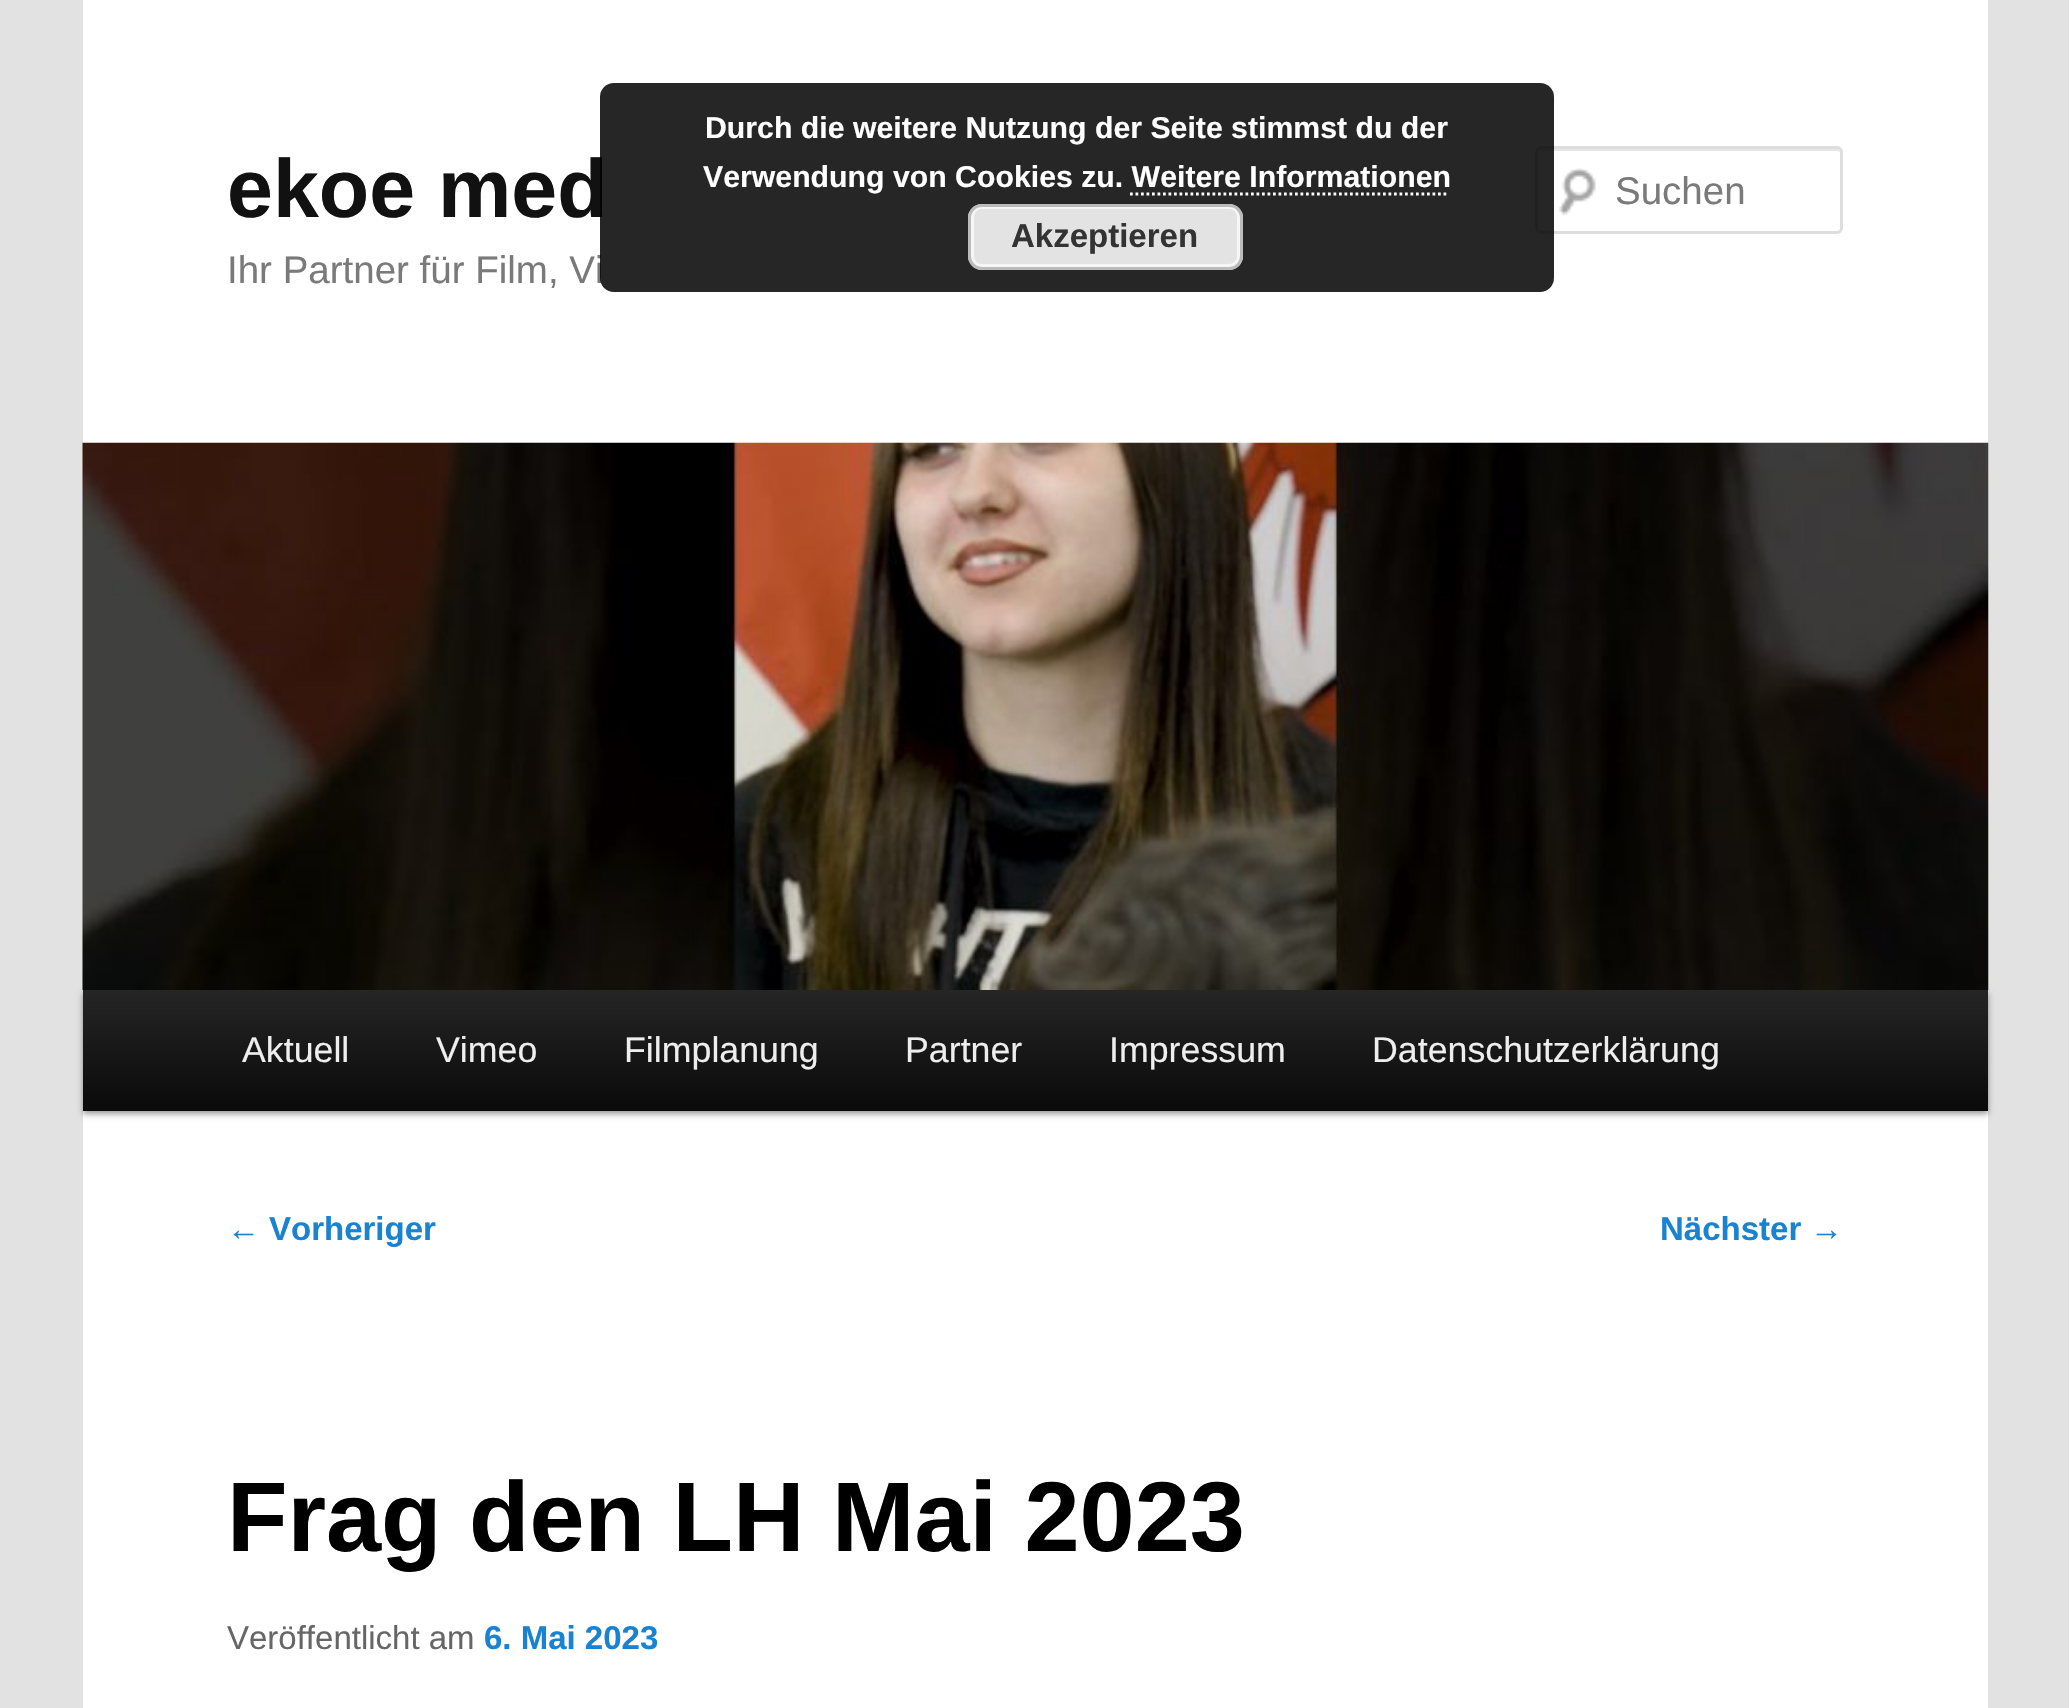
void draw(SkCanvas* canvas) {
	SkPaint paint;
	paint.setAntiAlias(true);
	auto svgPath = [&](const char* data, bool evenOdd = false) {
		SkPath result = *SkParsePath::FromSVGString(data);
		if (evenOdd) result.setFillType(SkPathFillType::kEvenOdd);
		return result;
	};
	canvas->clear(0xffe2e2e2);
	paint.setColor(0xffffffff);
	canvas->drawRect(SkRect::MakeXYWH(83, 0, 1905, 1708), paint);
	SkFont f1(fontMgr->matchFamilyStyle("Liberation Sans", SkFontStyle::Bold()), 82.5);
	f1.setSubpixel(true);
	paint.setColor(0xff111111);
	canvas->drawString("ekoe med", 227, 217, f1, paint);
	SkFont f2(fontMgr->matchFamilyStyle("Liberation Sans", SkFontStyle::Normal()), 38.5);
	f2.setSubpixel(true);
	paint.setColor(0xff7a7a7a);
	canvas->drawString("Ihr Partner für Film, Vi", 227, 283, f2, paint);
	paint.setColor(0xffe6e6e6);
	canvas->drawPath(svgPath("M1540 151H1837C1839 151 1840 152 1840 154C1840 152 1840 149 1837 149H1540C1537 149 1537 152 1537 154C1537 152 1538 151 1540 151Z"), paint);
	canvas->drawImageRect(SkImages::DeferredFromEncodedData(SkData::MakeFromFileName("img1.png")), SkRect::MakeXYWH(1558, 168, 38, 48), SkSamplingOptions());
	paint.setStroke(true);
	paint.setStrokeWidth(3);
	paint.setColor(0xffdddddd);
	canvas->drawRoundRect(SkRect::MakeXYWH(1536.5, 147.5, 305, 85), 4.5, 4.5, paint);
	paint.setStroke(false);
	paint.setColor(0xd9000000);
	canvas->drawRoundRect(SkRect::MakeXYWH(600, 83, 954, 209), 14, 14, paint);
	SkFont f3(fontMgr->matchFamilyStyle("Liberation Sans", SkFontStyle::Bold()), 30.25);
	f3.setSubpixel(true);
	paint.setColor(0xffffffff);
	canvas->drawString("Durch die weitere Nutzung der Seite stimmst du der", 705, 138, f3, paint);
	canvas->drawString("Verwendung von Cookies zu. Weitere Informationen", 703, 187, f3, paint);
	paint.setStroke(true);
	paint.setStrokeWidth(2.8);
	paint.setPathEffect(SkDashPathEffect::Make({{2.75f, 2.75f}}, 0));
	canvas->drawPath(svgPath("M1130 194H1449"), paint);
	paint.setPathEffect(nullptr);
	paint.setStroke(false);
	paint.setColor(0xffe3e3e3);
	canvas->drawRoundRect(SkRect::MakeXYWH(968, 204, 275, 66), 14, 14, paint);
	paint.setStroke(true);
	paint.setStrokeWidth(3);
	paint.setColor(0xfff6f6f6);
	canvas->drawRoundRect(SkRect::MakeXYWH(972.5, 207.5, 266, 58), 9.5, 9.5, paint);
	paint.setColor(0xffbbbbbb);
	canvas->drawRoundRect(SkRect::MakeXYWH(969.5, 205.5, 272, 63), 12.5, 12.5, paint);
	SkFont f4(fontMgr->matchFamilyStyle("Liberation Sans", SkFontStyle::Bold()), 33);
	f4.setSubpixel(true);
	paint.setStroke(false);
	paint.setColor(0xff333333);
	canvas->drawString("Akzeptieren", 1011, 247, f4, paint);
	paint.setColor(0xff7a7a7a);
	canvas->drawString("Suchen", 1615, 204, f2, paint);
	paint.setColor(0x66000000);
	paint.setMaskFilter(SkMaskFilter::MakeBlur(kNormal_SkBlurStyle, 3));
	canvas->drawRect(SkRect::MakeXYWH(83, 993, 1905, 121), paint);
	paint.setMaskFilter(nullptr);
	canvas->drawImageRect(SkImages::DeferredFromEncodedData(SkData::MakeFromFileName("img2.png")), SkRect::MakeXYWH(82, 442, 1907, 548), SkSamplingOptions());
	{
		const SkColor colors[] = {0xff252525, 0xff0a0a0a};
		const float stops[] = {0, 1};
		const SkPoint ends[] = {{1035, 990}, {1035, 1111}};
		paint.setShader(SkGradientShader::MakeLinear(ends, colors, stops, 2, SkTileMode::kClamp));
		paint.setAlpha(255);
	}
	canvas->drawRect(SkRect::MakeXYWH(83, 990, 1905, 121), paint);
	SkFont f5(fontMgr->matchFamilyStyle("Liberation Sans", SkFontStyle::Normal()), 35.75);
	f5.setSubpixel(true);
	paint.setShader(nullptr);
	paint.setColor(0xffeeeeee);
	canvas->drawString("Aktuell", 242, 1062, f5, paint);
	canvas->drawString("Vimeo", 436, 1062, f5, paint);
	canvas->drawString("Filmplanung", 624, 1062, f5, paint);
	canvas->drawString("Partner", 905, 1062, f5, paint);
	canvas->drawString("Impressum", 1109, 1062, f5, paint);
	canvas->drawString("Datenschutzerklärung", 1372, 1062, f5, paint);
	SkFont f6(fontMgr->matchFamilyStyle("Liberation Sans", SkFontStyle::Normal()), 33);
	f6.setSubpixel(true);
	paint.setColor(0xff1982d1);
	canvas->drawString("←", 227, 1240, f6, paint);
	canvas->drawString("Vorheriger", 269, 1240, f4, paint);
	canvas->drawString("Nächster", 1660, 1240, f4, paint);
	canvas->drawString("→", 1810, 1240, f6, paint);
	SkFont f7(fontMgr->matchFamilyStyle("Liberation Sans", SkFontStyle::Bold()), 99);
	f7.setSubpixel(true);
	paint.setColor(0xff000000);
	canvas->drawString("Frag den LH Mai 2023", 227, 1551, f7, paint);
	paint.setColor(0xff666666);
	canvas->drawString("Veröffentlicht am", 227, 1649, f6, paint);
	paint.setColor(0xff1982d1);
	canvas->drawString("6. Mai 2023", 484, 1649, f4, paint);
}
